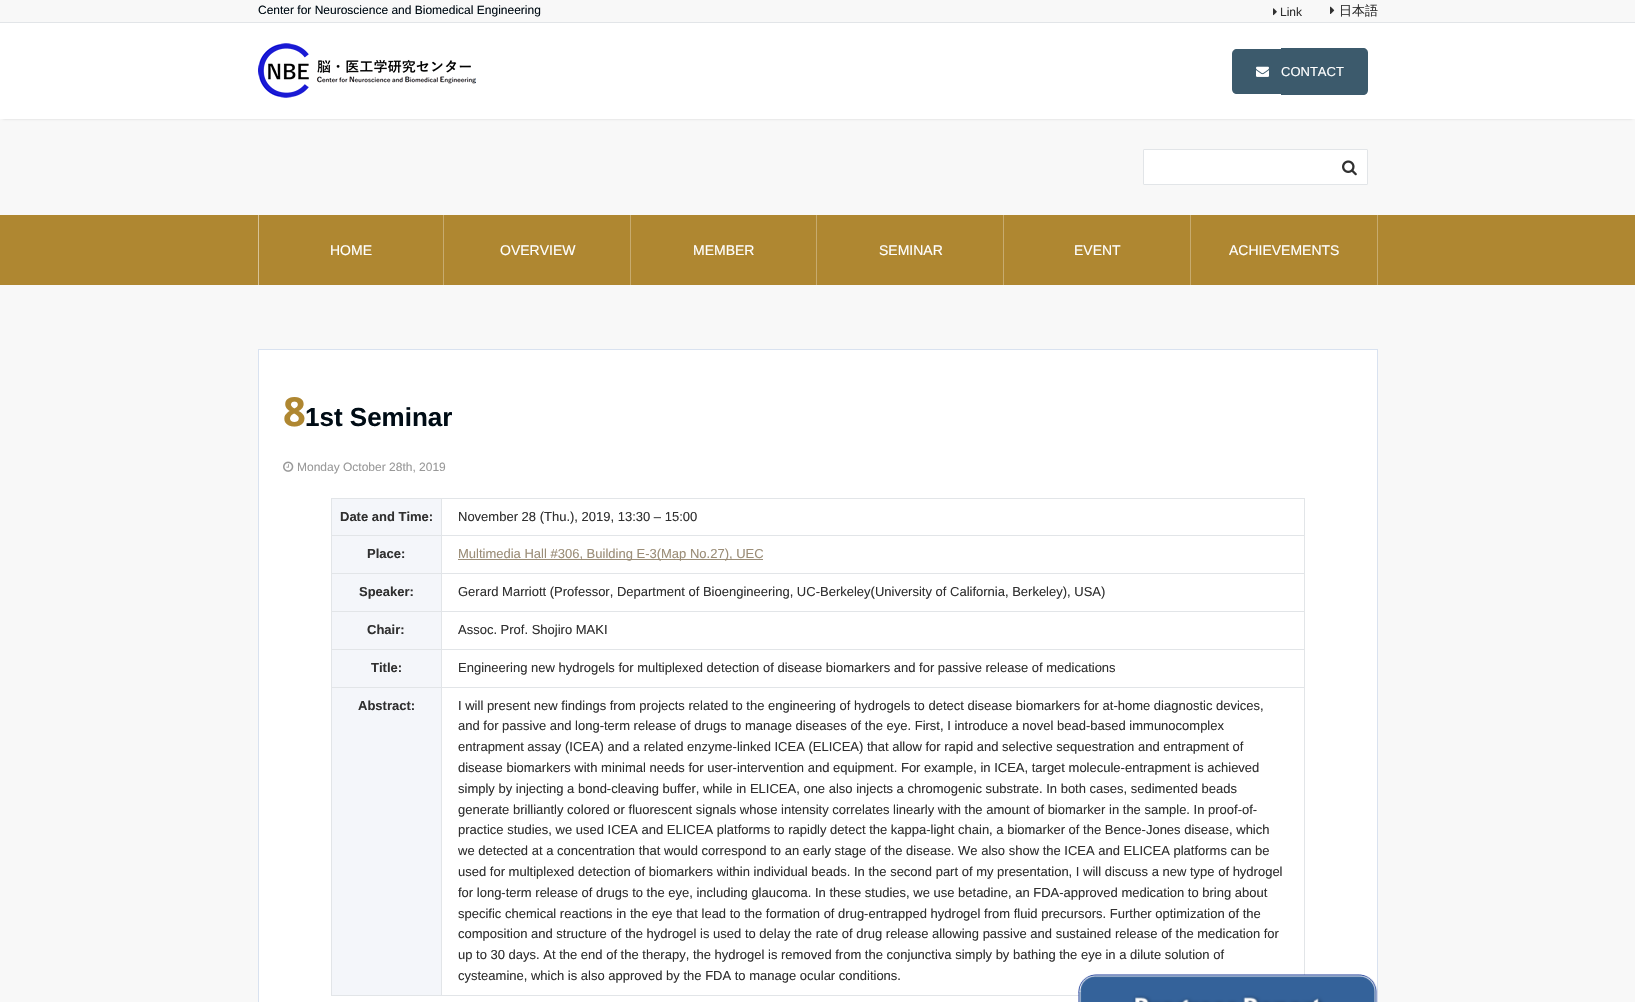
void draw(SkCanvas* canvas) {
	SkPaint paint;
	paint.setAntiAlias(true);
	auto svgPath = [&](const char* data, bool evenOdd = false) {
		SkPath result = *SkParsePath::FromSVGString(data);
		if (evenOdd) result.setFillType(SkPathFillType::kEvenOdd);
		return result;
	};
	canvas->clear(0xfff8f8f8);
	canvas->drawImageRect(SkImages::DeferredFromEncodedData(SkData::MakeFromFileName("img1.png")), SkRect::MakeXYWH(1273, 8, 4, 8), SkSamplingOptions());
	SkFont f1(fontMgr->matchFamilyStyle("Liberation Sans", SkFontStyle::Normal()), 12);
	f1.setSubpixel(true);
	paint.setColor(0xff303030);
	canvas->drawString("Link", 1280, 16, f1, paint);
	canvas->drawImageRect(SkImages::DeferredFromEncodedData(SkData::MakeFromFileName("img2.png")), SkRect::MakeXYWH(1330, 6, 5, 8), SkSamplingOptions());
	SkFont f2(fontMgr->matchFamilyStyle("WenQuanYi Zen Hei", SkFontStyle(500, SkFontStyle::kNormal_Width, SkFontStyle::kUpright_Slant)), 13);
	f2.setSubpixel(true);
	canvas->drawString("日本語", 1339, 15, f2, paint);
	paint.setColor(0xffe2e5e8);
	canvas->drawRect(SkRect::MakeXYWH(0, 22, 1635, 1), paint);
	paint.setColor(0xff000c15);
	canvas->drawString("Center for Neuroscience and Biomedical Engineering", 258, 14, f1, paint);
	paint.setColor(0x4d000000);
	paint.setMaskFilter(SkMaskFilter::MakeBlur(kNormal_SkBlurStyle, 1.5));
	canvas->drawRect(SkRect::MakeXYWH(3, 28, 1629, 90), paint);
	paint.setMaskFilter(nullptr);
	paint.setColor(0xffffffff);
	canvas->drawRect(SkRect::MakeXYWH(0, 23, 1635, 96), paint);
	canvas->drawImageRect(SkImages::DeferredFromEncodedData(SkData::MakeFromFileName("img3.png")), SkRect::MakeXYWH(258, 43, 218, 55), SkSamplingOptions());
	paint.setColor(0xff3c5a6c);
	canvas->drawPath(svgPath("M1237 49H1281V94H1237C1234 94 1232 92 1232 89V54C1232 51 1234 49 1237 49Z"), paint);
	canvas->drawImageRect(SkImages::DeferredFromEncodedData(SkData::MakeFromFileName("img4.png")), SkRect::MakeXYWH(1256, 66, 13, 11), SkSamplingOptions());
	canvas->drawPath(svgPath("M1281 48H1363C1366 48 1368 50 1368 53V90C1368 93 1366 95 1363 95H1281Z"), paint);
	SkFont f3(fontMgr->matchFamilyStyle("Liberation Sans", SkFontStyle::Normal()), 13);
	f3.setSubpixel(true);
	paint.setColor(0xffffffff);
	canvas->drawString("CONTACT", 1281, 76, f3, paint);
	canvas->drawRoundRect(SkRect::MakeXYWH(1143.5, 149.5, 224, 35), 0.5, 0.5, paint);
	paint.setStroke(true);
	paint.setStrokeWidth(1);
	paint.setColor(0xffe2e5e8);
	canvas->drawRoundRect(SkRect::MakeXYWH(1143.5, 149.5, 224, 35), 0.5, 0.5, paint);
	canvas->drawImageRect(SkImages::DeferredFromEncodedData(SkData::MakeFromFileName("img5.png")), SkRect::MakeXYWH(1342, 160, 15, 16), SkSamplingOptions());
	paint.setStroke(false);
	paint.setColor(0xffaf8731);
	canvas->drawRect(SkRect::MakeXYWH(0, 215, 1635, 70), paint);
	paint.setColor(0xffc7ab6f);
	canvas->drawRect(SkRect::MakeXYWH(1377, 215, 1, 70), paint);
	canvas->drawRect(SkRect::MakeXYWH(1190, 215, 1, 70), paint);
	canvas->drawRect(SkRect::MakeXYWH(1003, 215, 1, 70), paint);
	canvas->drawRect(SkRect::MakeXYWH(816, 215, 1, 70), paint);
	canvas->drawRect(SkRect::MakeXYWH(630, 215, 1, 70), paint);
	canvas->drawRect(SkRect::MakeXYWH(443, 215, 1, 70), paint);
	paint.setColor(0xffd7c398);
	canvas->drawRect(SkRect::MakeXYWH(258, 215, 1, 70), paint);
	SkFont f4(fontMgr->matchFamilyStyle("Liberation Sans", SkFontStyle::Normal()), 14);
	f4.setSubpixel(true);
	paint.setColor(0xffffffff);
	canvas->drawString("HOME", 330, 255, f4, paint);
	canvas->drawString("OVERVIEW", 500, 255, f4, paint);
	canvas->drawString("MEMBER", 693, 255, f4, paint);
	canvas->drawString("SEMINAR", 879, 255, f4, paint);
	canvas->drawString("EVENT", 1074, 255, f4, paint);
	canvas->drawString("ACHIEVEMENTS", 1229, 255, f4, paint);
	canvas->drawRect(SkRect::MakeXYWH(258.5, 349.5, 1119, 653), paint);
	paint.setStroke(true);
	paint.setColor(0xffd9e2f0);
	canvas->drawRect(SkRect::MakeXYWH(258.5, 349.5, 1119, 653), paint);
	SkFont f5(fontMgr->matchFamilyStyle("Noto Sans", SkFontStyle::Bold()), 40);
	f5.setSubpixel(true);
	paint.setStroke(false);
	paint.setColor(0xffaf8731);
	canvas->drawString("8", 283, 426, f5, paint);
	SkFont f6(fontMgr->matchFamilyStyle("Liberation Sans", SkFontStyle::Bold()), 26);
	f6.setSubpixel(true);
	paint.setColor(0xff000c15);
	canvas->drawString("1st Seminar", 305, 426, f6, paint);
	canvas->drawImageRect(SkImages::DeferredFromEncodedData(SkData::MakeFromFileName("img6.png")), SkRect::MakeXYWH(283, 461, 11, 11), SkSamplingOptions());
	paint.setColor(0xff999999);
	canvas->drawString("Monday October 28th, 2019", 297, 471, f1, paint);
	paint.setColor(0xfff4f6fa);
	canvas->drawRect(SkRect::MakeXYWH(332, 499, 109, 36), paint);
	paint.setColor(0xffe2e5e8);
	canvas->drawRect(SkRect::MakeXYWH(441, 498, 864, 1), paint);
	canvas->drawRect(SkRect::MakeXYWH(441, 535, 864, 1), paint);
	canvas->drawRect(SkRect::MakeXYWH(441, 573, 864, 1), paint);
	canvas->drawRect(SkRect::MakeXYWH(441, 611, 864, 1), paint);
	canvas->drawRect(SkRect::MakeXYWH(441, 649, 864, 1), paint);
	canvas->drawRect(SkRect::MakeXYWH(441, 687, 864, 1), paint);
	canvas->drawRect(SkRect::MakeXYWH(441, 995, 639, 1), paint);
	canvas->drawRect(SkRect::MakeXYWH(441, 687, 1, 309), paint);
	canvas->drawRect(SkRect::MakeXYWH(331, 687, 111, 1), paint);
	canvas->drawRect(SkRect::MakeXYWH(441, 649, 1, 39), paint);
	canvas->drawRect(SkRect::MakeXYWH(331, 649, 111, 1), paint);
	canvas->drawRect(SkRect::MakeXYWH(441, 611, 1, 39), paint);
	canvas->drawRect(SkRect::MakeXYWH(331, 611, 111, 1), paint);
	canvas->drawRect(SkRect::MakeXYWH(441, 573, 1, 39), paint);
	canvas->drawRect(SkRect::MakeXYWH(331, 573, 111, 1), paint);
	canvas->drawRect(SkRect::MakeXYWH(441, 535, 1, 39), paint);
	canvas->drawRect(SkRect::MakeXYWH(331, 535, 111, 1), paint);
	canvas->drawRect(SkRect::MakeXYWH(441, 498, 1, 38), paint);
	canvas->drawRect(SkRect::MakeXYWH(331, 498, 111, 1), paint);
	canvas->drawRect(SkRect::MakeXYWH(331, 995, 111, 1), paint);
	canvas->drawRect(SkRect::MakeXYWH(331, 687, 1, 309), paint);
	canvas->drawRect(SkRect::MakeXYWH(331, 649, 1, 39), paint);
	canvas->drawRect(SkRect::MakeXYWH(331, 611, 1, 39), paint);
	canvas->drawRect(SkRect::MakeXYWH(331, 573, 1, 39), paint);
	canvas->drawRect(SkRect::MakeXYWH(331, 535, 1, 39), paint);
	canvas->drawRect(SkRect::MakeXYWH(331, 498, 1, 38), paint);
	SkFont f7(fontMgr->matchFamilyStyle("Liberation Sans", SkFontStyle::Bold()), 13);
	f7.setSubpixel(true);
	paint.setColor(0xff303030);
	canvas->drawString("Date and Time:", 340, 521, f7, paint);
	paint.setColor(0xffe2e5e8);
	canvas->drawRect(SkRect::MakeXYWH(1304, 687, 1, 289), paint);
	canvas->drawRect(SkRect::MakeXYWH(1304, 649, 1, 39), paint);
	canvas->drawRect(SkRect::MakeXYWH(1304, 611, 1, 39), paint);
	canvas->drawRect(SkRect::MakeXYWH(1304, 573, 1, 39), paint);
	canvas->drawRect(SkRect::MakeXYWH(1304, 535, 1, 39), paint);
	canvas->drawRect(SkRect::MakeXYWH(1304, 498, 1, 38), paint);
	paint.setColor(0xff303030);
	canvas->drawString("November 28 (Thu.), 2019, 13:30 – 15:00", 458, 521, f3, paint);
	paint.setColor(0xfff4f6fa);
	canvas->drawRect(SkRect::MakeXYWH(332, 536, 109, 37), paint);
	paint.setColor(0xff303030);
	canvas->drawString("Place:", 367, 558, f7, paint);
	paint.setColor(0xff9b8d77);
	canvas->drawRect(SkRect::MakeXYWH(458, 559, 305, 1), paint);
	canvas->drawString("Multimedia Hall #306, Building E-3(Map No.27), UEC", 458, 558, f3, paint);
	paint.setColor(0xfff4f6fa);
	canvas->drawRect(SkRect::MakeXYWH(332, 574, 109, 37), paint);
	paint.setColor(0xff303030);
	canvas->drawString("Speaker:", 359, 596, f7, paint);
	canvas->drawString("Gerard Marriott (Professor, Department of Bioengineering, UC-Berkeley(University of California, Berkeley), USA)", 458, 596, f3, paint);
	paint.setColor(0xfff4f6fa);
	canvas->drawRect(SkRect::MakeXYWH(332, 612, 109, 37), paint);
	paint.setColor(0xff303030);
	canvas->drawString("Chair:", 367, 634, f7, paint);
	canvas->drawString("Assoc. Prof. Shojiro MAKI", 458, 634, f3, paint);
	paint.setColor(0xfff4f6fa);
	canvas->drawRect(SkRect::MakeXYWH(332, 650, 109, 37), paint);
	paint.setColor(0xff303030);
	canvas->drawString("Title:", 371, 672, f7, paint);
	canvas->drawString("Engineering new hydrogels for multiplexed detection of disease biomarkers and for passive release of medications", 458, 672, f3, paint);
	paint.setColor(0xfff4f6fa);
	canvas->drawRect(SkRect::MakeXYWH(332, 688, 109, 307), paint);
	paint.setColor(0xff303030);
	canvas->drawString("Abstract:", 358, 710, f7, paint);
	canvas->drawString("I will present new findings from projects related to the engineering of hydrogels to detect disease biomarkers for at-home diagnostic devices,", 458, 710, f3, paint);
	canvas->drawString("and for passive and long-term release of drugs to manage diseases of the eye. First, I introduce a novel bead-based immunocomplex", 458, 730, f3, paint);
	canvas->drawString("entrapment assay (ICEA) and a related enzyme-linked ICEA (ELICEA) that allow for rapid and selective sequestration and entrapment of", 458, 751, f3, paint);
	canvas->drawString("disease biomarkers with minimal needs for user-intervention and equipment. For example, in ICEA, target molecule-entrapment is achieved", 458, 772, f3, paint);
	canvas->drawString("simply by injecting a bond-cleaving buffer, while in ELICEA, one also injects a chromogenic substrate. In both cases, sedimented beads", 458, 793, f3, paint);
	canvas->drawString("generate brilliantly colored or fluorescent signals whose intensity correlates linearly with the amount of biomarker in the sample. In proof-of-", 458, 814, f3, paint);
	canvas->drawString("practice studies, we used ICEA and ELICEA platforms to rapidly detect the kappa-light chain, a biomarker of the Bence-Jones disease, which", 458, 834, f3, paint);
	canvas->drawString("we detected at a concentration that would correspond to an early stage of the disease. We also show the ICEA and ELICEA platforms can be", 458, 855, f3, paint);
	canvas->drawString("used for multiplexed detection of biomarkers within individual beads. In the second part of my presentation, I will discuss a new type of hydrogel", 458, 876, f3, paint);
	canvas->drawString("for long-term release of drugs to the eye, including glaucoma. In these studies, we use betadine, an FDA-approved medication to bring about", 458, 897, f3, paint);
	canvas->drawString("specific chemical reactions in the eye that lead to the formation of drug-entrapped hydrogel from fluid precursors. Further optimization of the", 458, 918, f3, paint);
	canvas->drawString("composition and structure of the hydrogel is used to delay the rate of drug release allowing passive and sustained release of the medication for", 458, 938, f3, paint);
	canvas->drawString("up to 30 days. At the end of the therapy, the hydrogel is removed from the conjunctiva simply by bathing the eye in a dilute solution of", 458, 959, f3, paint);
	canvas->drawString("cysteamine, which is also approved by the FDA to manage ocular conditions.", 458, 980, f3, paint);
	canvas->drawImageRect(SkImages::DeferredFromEncodedData(SkData::MakeFromFileName("img7.png")), SkRect::MakeXYWH(1078, 974, 300, 28), SkSamplingOptions());
}
